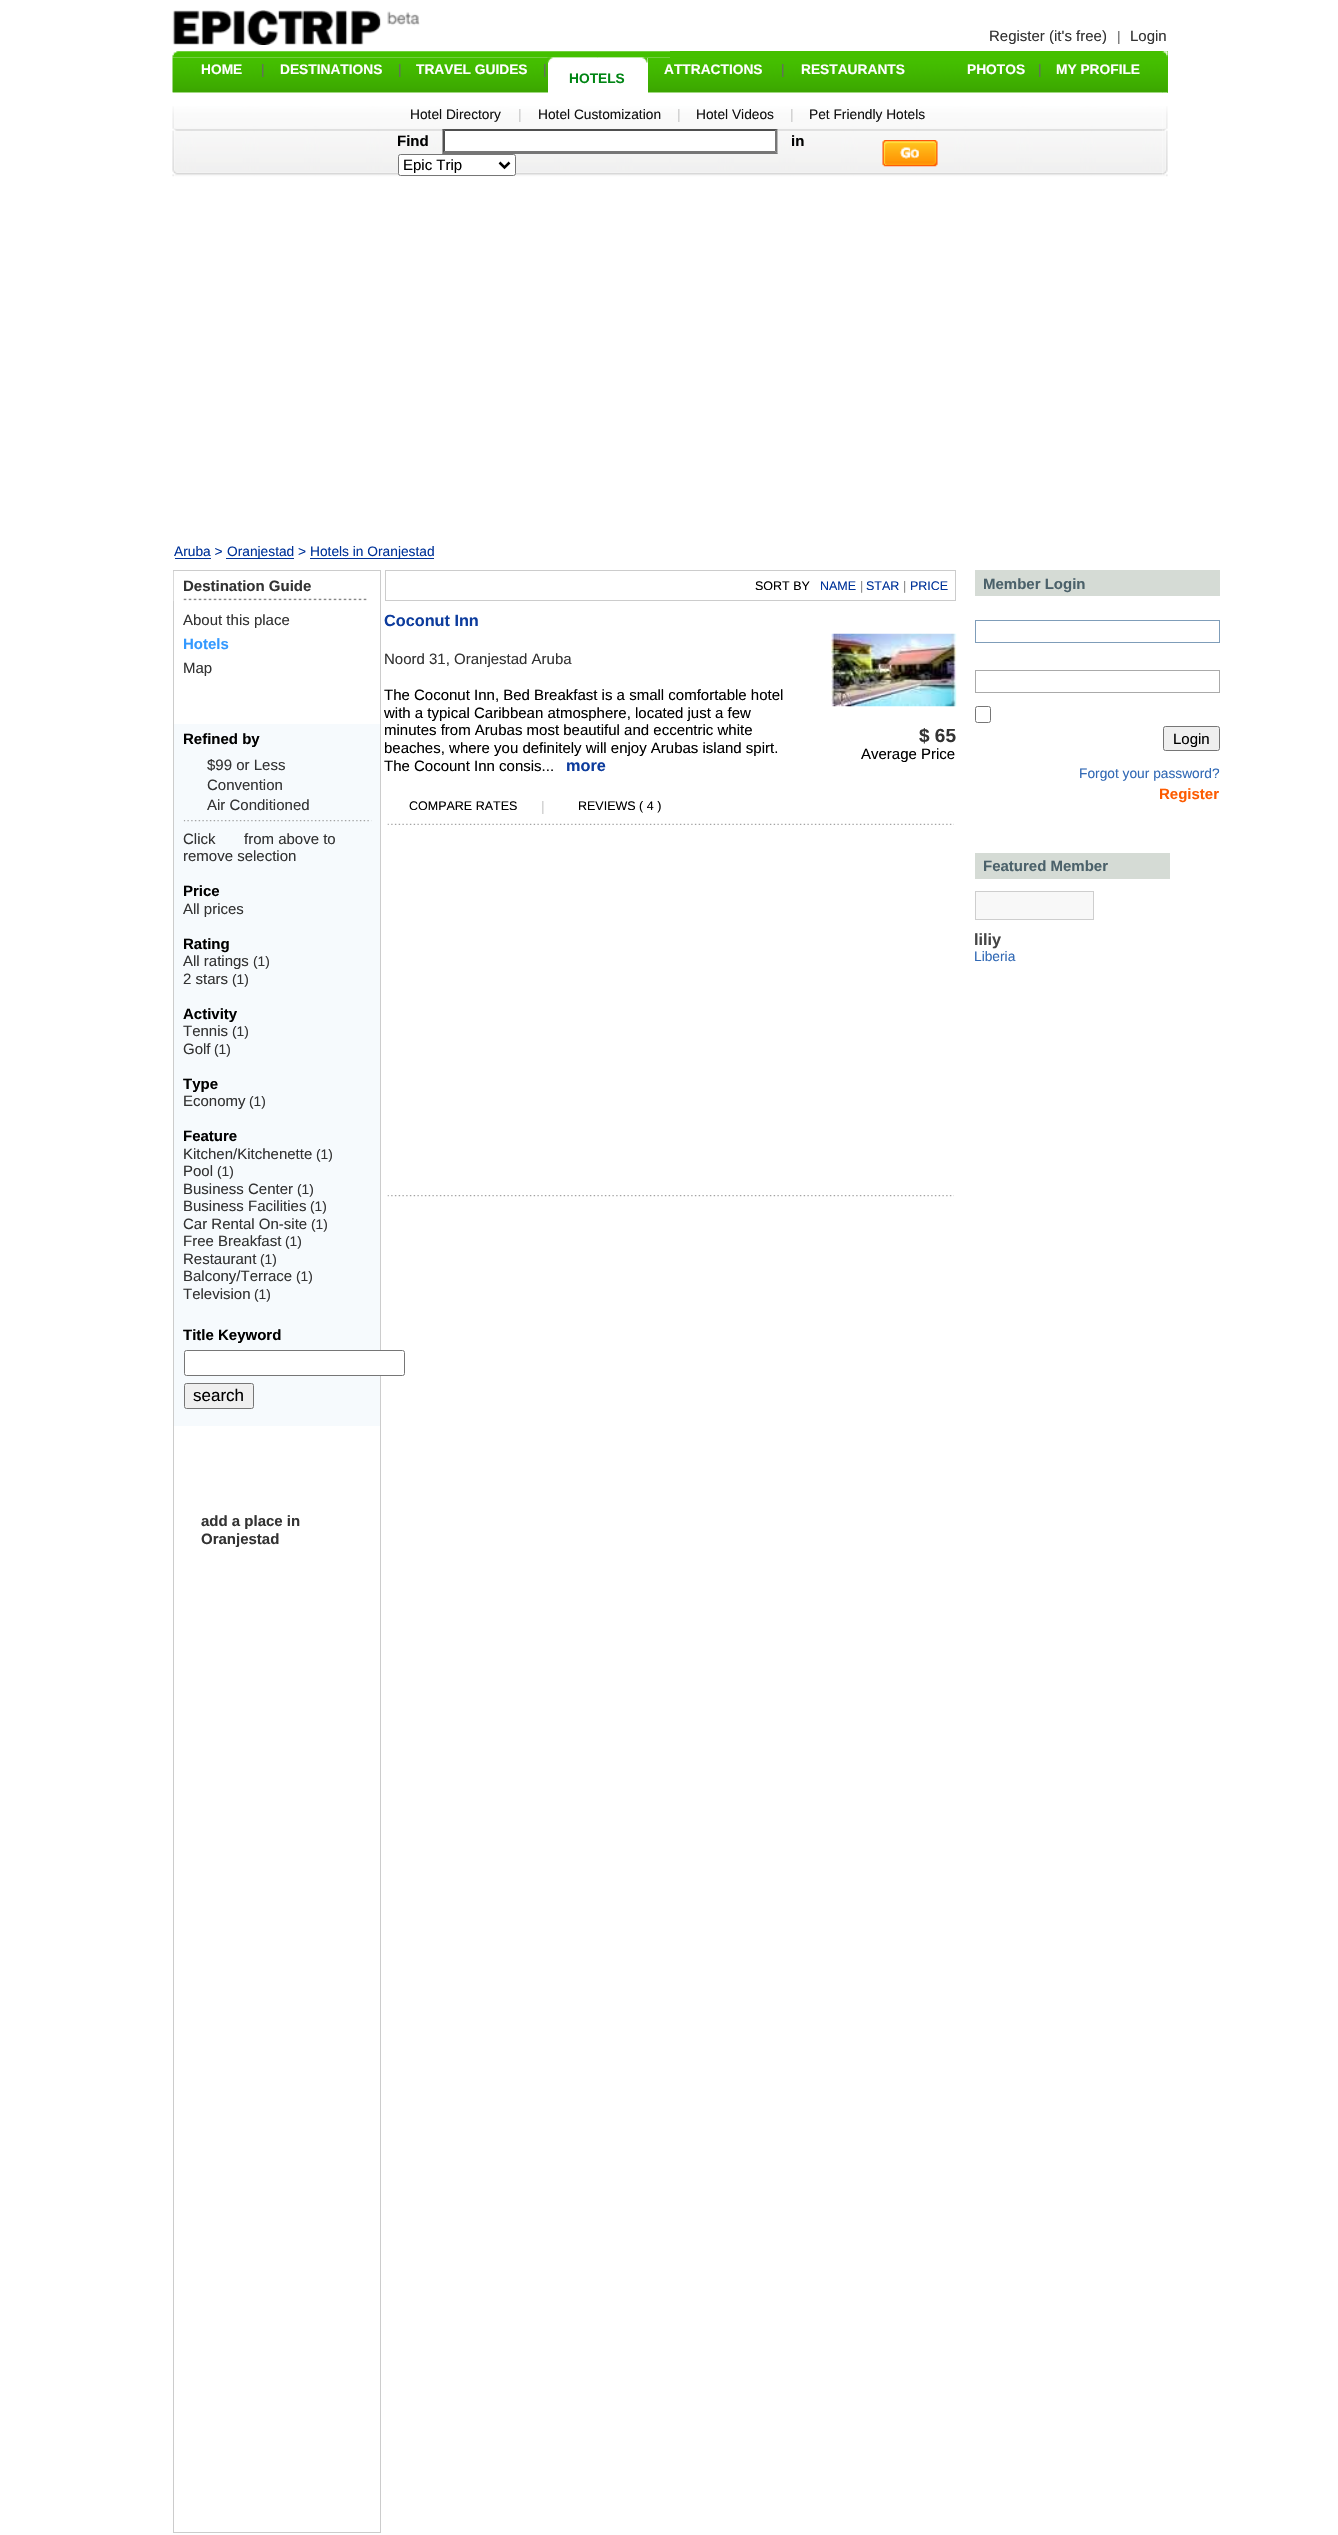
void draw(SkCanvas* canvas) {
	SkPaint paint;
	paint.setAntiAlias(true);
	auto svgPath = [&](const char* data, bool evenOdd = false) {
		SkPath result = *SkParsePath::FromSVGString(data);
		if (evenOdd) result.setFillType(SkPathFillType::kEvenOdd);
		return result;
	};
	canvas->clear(0xffffffff);
	canvas->drawImageRect(SkImages::DeferredFromEncodedData(SkData::MakeFromFileName("img1.png")), SkRect::MakeXYWH(172, 10, 248, 35), SkSamplingOptions());
	SkFont f1(fontMgr->matchFamilyStyle("Liberation Sans", SkFontStyle::Normal()), 15);
	f1.setSubpixel(true);
	paint.setColor(0xff333333);
	canvas->drawString("Register (it's free)", 989, 41, f1, paint);
	SkFont f2(fontMgr->matchFamilyStyle("Liberation Sans", SkFontStyle::Normal()), 13.75);
	f2.setSubpixel(true);
	paint.setColor(0xff666666);
	canvas->drawString("|", 1117, 41, f2, paint);
	paint.setColor(0xff333333);
	canvas->drawString("Login", 1130, 41, f1, paint);
	canvas->drawImageRect(SkImages::DeferredFromEncodedData(SkData::MakeFromFileName("img2.png")), SkRect::MakeXYWH(172, 51, 498, 7), SkSamplingOptions());
	paint.setColor(0xff43bb00);
	canvas->drawRect(SkRect::MakeXYWH(670, 51, 498, 7), paint);
	canvas->drawImageRect(SkImages::DeferredFromEncodedData(SkData::MakeFromFileName("img3.png")), SkRect::MakeXYWH(670, 51, 498, 6), SkSamplingOptions());
	canvas->drawRect(SkRect::MakeXYWH(173, 58, 995, 35), paint);
	canvas->drawImageRect(SkImages::DeferredFromEncodedData(SkData::MakeFromFileName("img4.png")), SkRect::MakeXYWH(172, 57, 996, 36), SkSamplingOptions());
	SkFont f3(fontMgr->matchFamilyStyle("Liberation Sans", SkFontStyle::Bold()), 13.75);
	f3.setSubpixel(true);
	paint.setColor(0xffffffff);
	canvas->drawString("HOME", 201, 74, f3, paint);
	paint.setColor(0xff666666);
	canvas->drawString("|", 261, 74, f2, paint);
	paint.setColor(0xffffffff);
	canvas->drawString("DESTINATIONS", 280, 74, f3, paint);
	paint.setColor(0xff666666);
	canvas->drawString("|", 398, 74, f2, paint);
	paint.setColor(0xffffffff);
	canvas->drawString("TRAVEL GUIDES", 416, 74, f3, paint);
	paint.setColor(0xff666666);
	canvas->drawString("|", 543, 74, f2, paint);
	paint.setColor(0xffffffff);
	canvas->drawString("ATTRACTIONS", 664, 74, f3, paint);
	paint.setColor(0xff666666);
	canvas->drawString("|", 781, 74, f2, paint);
	paint.setColor(0xffffffff);
	canvas->drawString("RESTAURANTS", 801, 74, f3, paint);
	canvas->drawString("PHOTOS", 967, 74, f3, paint);
	paint.setColor(0xff666666);
	canvas->drawString("|", 1038, 74, f2, paint);
	paint.setColor(0xffffffff);
	canvas->drawString("MY PROFILE", 1056, 74, f3, paint);
	canvas->drawRect(SkRect::MakeXYWH(548, 58, 100, 35), paint);
	canvas->drawImageRect(SkImages::DeferredFromEncodedData(SkData::MakeFromFileName("img5.png")), SkRect::MakeXYWH(547, 57, 51, 6), SkSamplingOptions());
	canvas->drawImageRect(SkImages::DeferredFromEncodedData(SkData::MakeFromFileName("img6.png")), SkRect::MakeXYWH(597, 57, 51, 6), SkSamplingOptions());
	paint.setColor(0xff008513);
	canvas->drawString("HOTELS", 569, 83, f3, paint);
	canvas->drawImageRect(SkImages::DeferredFromEncodedData(SkData::MakeFromFileName("img7.png")), SkRect::MakeXYWH(172, 92, 991, 37), SkSamplingOptions());
	paint.setColor(0xff111111);
	canvas->drawString("Hotel Directory", 410, 119, f2, paint);
	paint.setColor(0xffcccccc);
	canvas->drawString("|", 518, 119, f2, paint);
	paint.setColor(0xff111111);
	canvas->drawString("Hotel Customization", 538, 119, f2, paint);
	paint.setColor(0xffcccccc);
	canvas->drawString("|", 677, 119, f2, paint);
	paint.setColor(0xff111111);
	canvas->drawString("Hotel Videos", 696, 119, f2, paint);
	paint.setColor(0xffcccccc);
	canvas->drawString("|", 790, 119, f2, paint);
	paint.setColor(0xff111111);
	canvas->drawString("Pet Friendly Hotels", 809, 119, f2, paint);
	canvas->drawImageRect(SkImages::DeferredFromEncodedData(SkData::MakeFromFileName("img8.png")), SkRect::MakeXYWH(1162, 92, 6, 37), SkSamplingOptions());
	canvas->drawImageRect(SkImages::DeferredFromEncodedData(SkData::MakeFromFileName("img9.png")), SkRect::MakeXYWH(172, 128, 991, 49), SkSamplingOptions());
	SkFont f4(fontMgr->matchFamilyStyle("Liberation Sans", SkFontStyle::Bold()), 15);
	f4.setSubpixel(true);
	paint.setColor(0xff000000);
	canvas->drawString("Find", 397, 146, f4, paint);
	paint.setColor(0xffffffff);
	canvas->drawRect(SkRect::MakeXYWH(443, 129, 335, 25), paint);
	paint.setColor(0xff4f4f4f);
	canvas->drawPath(svgPath("M442 129H778L775 131H445Z"), paint);
	paint.setColor(0xff767676);
	canvas->drawPath(svgPath("M777.5 129V154L775 151V131Z"), paint);
	canvas->drawPath(svgPath("M778 154H442L445 151H775Z"), paint);
	paint.setColor(0xff4f4f4f);
	canvas->drawPath(svgPath("M442.5 154V129L445 131V151Z"), paint);
	paint.setColor(0xff000000);
	canvas->drawString("in", 791, 146, f4, paint);
	paint.setColor(0xffffffff);
	canvas->drawRoundRect(SkRect::MakeXYWH(398.5, 154.5, 117, 21), 2, 2, paint);
	paint.setStroke(true);
	paint.setStrokeWidth(1);
	paint.setColor(0xff767676);
	canvas->drawRoundRect(SkRect::MakeXYWH(398.5, 154.5, 117, 21), 2, 2, paint);
	paint.setStrokeWidth(2.5);
	paint.setColor(0xff000000);
	canvas->drawPath(svgPath("M499.5 162.5L504.5 167.5L509.5 162.5"), paint);
	paint.setStroke(false);
	canvas->drawString("Epic Trip", 403, 170, f1, paint);
	canvas->drawImageRect(SkImages::DeferredFromEncodedData(SkData::MakeFromFileName("img10.png")), SkRect::MakeXYWH(882, 140, 56, 27), SkSamplingOptions());
	canvas->drawImageRect(SkImages::DeferredFromEncodedData(SkData::MakeFromFileName("img11.png")), SkRect::MakeXYWH(1162, 128, 6, 49), SkSamplingOptions());
	paint.setColor(0xff003399);
	canvas->drawString("Aruba >", 174, 556, f2, paint);
	canvas->drawRect(SkRect::MakeXYWH(175, 558, 36, 1), paint);
	canvas->drawRect(SkRect::MakeXYWH(226, 558, 68, 1), paint);
	canvas->drawString("Oranjestad >", 227, 556, f2, paint);
	canvas->drawRect(SkRect::MakeXYWH(310, 558, 124, 1), paint);
	canvas->drawString("Hotels in Oranjestad", 310, 556, f2, paint);
	paint.setStroke(true);
	paint.setStrokeWidth(1);
	paint.setColor(0xffcccccc);
	canvas->drawRect(SkRect::MakeXYWH(173.5, 570.5, 207, 1962), paint);
	canvas->drawImageRect(SkImages::DeferredFromEncodedData(SkData::MakeFromFileName("img12.png")), SkRect::MakeXYWH(173, 571, 194, 30), SkSamplingOptions());
	paint.setStroke(false);
	paint.setColor(0xff333333);
	canvas->drawString("Destination Guide", 183, 591, f4, paint);
	canvas->drawString("About this place", 183, 625, f1, paint);
	paint.setColor(0xff3399ff);
	canvas->drawString("Hotels", 183, 649, f4, paint);
	paint.setColor(0xff333333);
	canvas->drawString("Map", 183, 673, f1, paint);
	paint.setColor(0xfff6fafd);
	canvas->drawRect(SkRect::MakeXYWH(174, 724, 206, 702), paint);
	paint.setColor(0xff000000);
	canvas->drawString("Refined by", 183, 744, f4, paint);
	paint.setColor(0xff333333);
	canvas->drawString("$99 or Less", 207, 770, f1, paint);
	canvas->drawString("Convention", 207, 790, f1, paint);
	canvas->drawString("Air Conditioned", 207, 810, f1, paint);
	canvas->drawImageRect(SkImages::DeferredFromEncodedData(SkData::MakeFromFileName("img13.png")), SkRect::MakeXYWH(183, 820, 189, 2), SkSamplingOptions());
	canvas->drawString("Click", 183, 844, f1, paint);
	canvas->drawString("from above to", 244, 844, f1, paint);
	canvas->drawString("remove selection", 183, 861, f1, paint);
	paint.setColor(0xff000000);
	canvas->drawString("Price", 183, 896, f4, paint);
	paint.setColor(0xff333333);
	canvas->drawString("All prices", 183, 914, f1, paint);
	paint.setColor(0xff000000);
	canvas->drawString("Rating", 183, 949, f4, paint);
	paint.setColor(0xff333333);
	canvas->drawString("All ratings", 183, 966, f1, paint);
	canvas->drawString("(1)", 253, 966, f2, paint);
	canvas->drawString("2 stars", 183, 984, f1, paint);
	canvas->drawString("(1)", 232, 984, f2, paint);
	paint.setColor(0xff000000);
	canvas->drawString("Activity", 183, 1019, f4, paint);
	paint.setColor(0xff333333);
	canvas->drawString("Tennis", 183, 1036, f1, paint);
	canvas->drawString("(1)", 232, 1036, f2, paint);
	canvas->drawString("Golf", 183, 1054, f1, paint);
	canvas->drawString("(1)", 214, 1054, f2, paint);
	paint.setColor(0xff000000);
	canvas->drawString("Type", 183, 1089, f4, paint);
	paint.setColor(0xff333333);
	canvas->drawString("Economy", 183, 1106, f1, paint);
	canvas->drawString("(1)", 249, 1106, f2, paint);
	paint.setColor(0xff000000);
	canvas->drawString("Feature", 183, 1141, f4, paint);
	paint.setColor(0xff333333);
	canvas->drawString("Kitchen/Kitchenette", 183, 1159, f1, paint);
	canvas->drawString("(1)", 316, 1159, f2, paint);
	canvas->drawString("Pool", 183, 1176, f1, paint);
	canvas->drawString("(1)", 217, 1176, f2, paint);
	canvas->drawString("Business Center", 183, 1194, f1, paint);
	canvas->drawString("(1)", 297, 1194, f2, paint);
	canvas->drawString("Business Facilities", 183, 1211, f1, paint);
	canvas->drawString("(1)", 310, 1211, f2, paint);
	canvas->drawString("Car Rental On-site", 183, 1229, f1, paint);
	canvas->drawString("(1)", 311, 1229, f2, paint);
	canvas->drawString("Free Breakfast", 183, 1246, f1, paint);
	canvas->drawString("(1)", 285, 1246, f2, paint);
	canvas->drawString("Restaurant", 183, 1264, f1, paint);
	canvas->drawString("(1)", 260, 1264, f2, paint);
	canvas->drawString("Balcony/Terrace", 183, 1281, f1, paint);
	canvas->drawString("(1)", 296, 1281, f2, paint);
	canvas->drawString("Television", 183, 1299, f1, paint);
	canvas->drawString("(1)", 254, 1299, f2, paint);
	paint.setColor(0xff000000);
	canvas->drawString("Title Keyword", 183, 1340, f4, paint);
	paint.setColor(0xffffffff);
	canvas->drawRoundRect(SkRect::MakeXYWH(184.5, 1350.5, 220, 25), 2, 2, paint);
	paint.setStroke(true);
	paint.setColor(0xff767676);
	canvas->drawRoundRect(SkRect::MakeXYWH(184.5, 1350.5, 220, 25), 2, 2, paint);
	paint.setStroke(false);
	paint.setColor(0xffefefef);
	canvas->drawRoundRect(SkRect::MakeXYWH(184.5, 1383.5, 69, 25), 2, 2, paint);
	paint.setStroke(true);
	paint.setColor(0xff767676);
	canvas->drawRoundRect(SkRect::MakeXYWH(184.5, 1383.5, 69, 25), 2, 2, paint);
	SkFont f5(fontMgr->matchFamilyStyle("Liberation Sans", SkFontStyle::Normal()), 17);
	f5.setSubpixel(true);
	paint.setStroke(false);
	paint.setColor(0xff000000);
	canvas->drawString("search", 193, 1401, f5, paint);
	paint.setColor(0xff333333);
	canvas->drawString("add a place in", 201, 1526, f4, paint);
	canvas->drawString("Oranjestad", 201, 1544, f4, paint);
	paint.setStroke(true);
	paint.setColor(0xffcccccc);
	canvas->drawRect(SkRect::MakeXYWH(385.5, 570.5, 570, 30), paint);
	SkFont f6(fontMgr->matchFamilyStyle("Liberation Sans", SkFontStyle::Normal()), 12.5);
	f6.setSubpixel(true);
	paint.setStroke(false);
	paint.setColor(0xff000000);
	canvas->drawString("SORT BY", 755, 590, f6, paint);
	paint.setColor(0xff003399);
	canvas->drawString("NAME", 820, 590, f6, paint);
	paint.setColor(0xff888888);
	canvas->drawString("|", 860, 590, f6, paint);
	paint.setColor(0xff003399);
	canvas->drawString("STAR", 866, 590, f6, paint);
	paint.setColor(0xff888888);
	canvas->drawString("|", 903, 590, f6, paint);
	paint.setColor(0xff003399);
	canvas->drawString("PRICE", 910, 590, f6, paint);
	SkFont f7(fontMgr->matchFamilyStyle("Liberation Sans", SkFontStyle::Bold()), 16.25);
	f7.setSubpixel(true);
	paint.setColor(0xff0d3c9d);
	canvas->drawString("Coconut Inn", 384, 626, f7, paint);
	paint.setColor(0xff333333);
	canvas->drawString("Noord 31, Oranjestad Aruba", 384, 664, f1, paint);
	paint.setColor(0xff000000);
	canvas->drawString("The Coconut Inn, Bed Breakfast is a small comfortable hotel", 384, 700, f1, paint);
	canvas->drawString("with a typical Caribbean atmosphere, located just a few", 384, 718, f1, paint);
	canvas->drawString("minutes from Arubas most beautiful and eccentric white", 384, 735, f1, paint);
	canvas->drawString("beaches, where you definitely will enjoy Arubas island spirt.", 384, 753, f1, paint);
	canvas->drawString("The Cocount Inn consis...", 384, 771, f1, paint);
	paint.setColor(0xff0d3c9d);
	canvas->drawString("more", 566, 771, f7, paint);
	canvas->drawImageRect(SkImages::DeferredFromEncodedData(SkData::MakeFromFileName("img14.png")), SkRect::MakeXYWH(831, 633, 126, 74), SkSamplingOptions());
	SkFont f8(fontMgr->matchFamilyStyle("Liberation Sans", SkFontStyle::Bold()), 19);
	f8.setSubpixel(true);
	paint.setColor(0xff333333);
	canvas->drawString("$ 65", 919, 742, f8, paint);
	paint.setColor(0xff000000);
	canvas->drawString("Average Price", 861, 759, f1, paint);
	canvas->drawString("COMPARE RATES", 409, 810, f6, paint);
	paint.setColor(0xffcccccc);
	canvas->drawString("|", 541, 811, f2, paint);
	paint.setColor(0xff000000);
	canvas->drawString("REVIEWS ( 4 )", 578, 810, f6, paint);
	canvas->drawImageRect(SkImages::DeferredFromEncodedData(SkData::MakeFromFileName("img15.png")), SkRect::MakeXYWH(387, 823, 567, 2), SkSamplingOptions());
	canvas->drawImageRect(SkImages::DeferredFromEncodedData(SkData::MakeFromFileName("img16.png")), SkRect::MakeXYWH(387, 1195, 567, 2), SkSamplingOptions());
	paint.setColor(0xffd5dbd5);
	canvas->drawRect(SkRect::MakeXYWH(975, 570, 245, 26), paint);
	paint.setColor(0xff4b616a);
	canvas->drawString("Member Login", 983, 589, f4, paint);
	paint.setStroke(true);
	paint.setColor(0xff7f9db9);
	canvas->drawRect(SkRect::MakeXYWH(975.5, 620.5, 244, 22), paint);
	paint.setColor(0xffaaaaaa);
	canvas->drawRect(SkRect::MakeXYWH(975.5, 670.5, 244, 22), paint);
	paint.setColor(0xff767676);
	canvas->drawRoundRect(SkRect::MakeXYWH(975.5, 706.5, 15, 16), 2, 2, paint);
	paint.setStroke(false);
	paint.setColor(0xffefefef);
	canvas->drawRoundRect(SkRect::MakeXYWH(1163.5, 726.5, 56, 24), 2, 2, paint);
	paint.setStroke(true);
	paint.setColor(0xff767676);
	canvas->drawRoundRect(SkRect::MakeXYWH(1163.5, 726.5, 56, 24), 2, 2, paint);
	paint.setStroke(false);
	paint.setColor(0xff000000);
	canvas->drawString("Login", 1173, 744, f1, paint);
	paint.setColor(0xff3169b5);
	canvas->drawString("Forgot your password?", 1079, 778, f2, paint);
	paint.setColor(0xfffd5b00);
	canvas->drawString("Register", 1159, 799, f4, paint);
	paint.setColor(0xffd5dbd5);
	canvas->drawRect(SkRect::MakeXYWH(975, 853, 195, 26), paint);
	paint.setColor(0xff4b616a);
	canvas->drawString("Featured Member", 983, 871, f4, paint);
	paint.setColor(0xfff8f8f8);
	canvas->drawRect(SkRect::MakeXYWH(975.5, 891.5, 118, 28), paint);
	paint.setStroke(true);
	paint.setColor(0xffcecece);
	canvas->drawRect(SkRect::MakeXYWH(975.5, 891.5, 118, 28), paint);
	paint.setStroke(false);
	paint.setColor(0xff454545);
	canvas->drawString("liliy", 974, 945, f7, paint);
	paint.setColor(0xff3169b5);
	canvas->drawString("Liberia", 974, 961, f2, paint);
}
